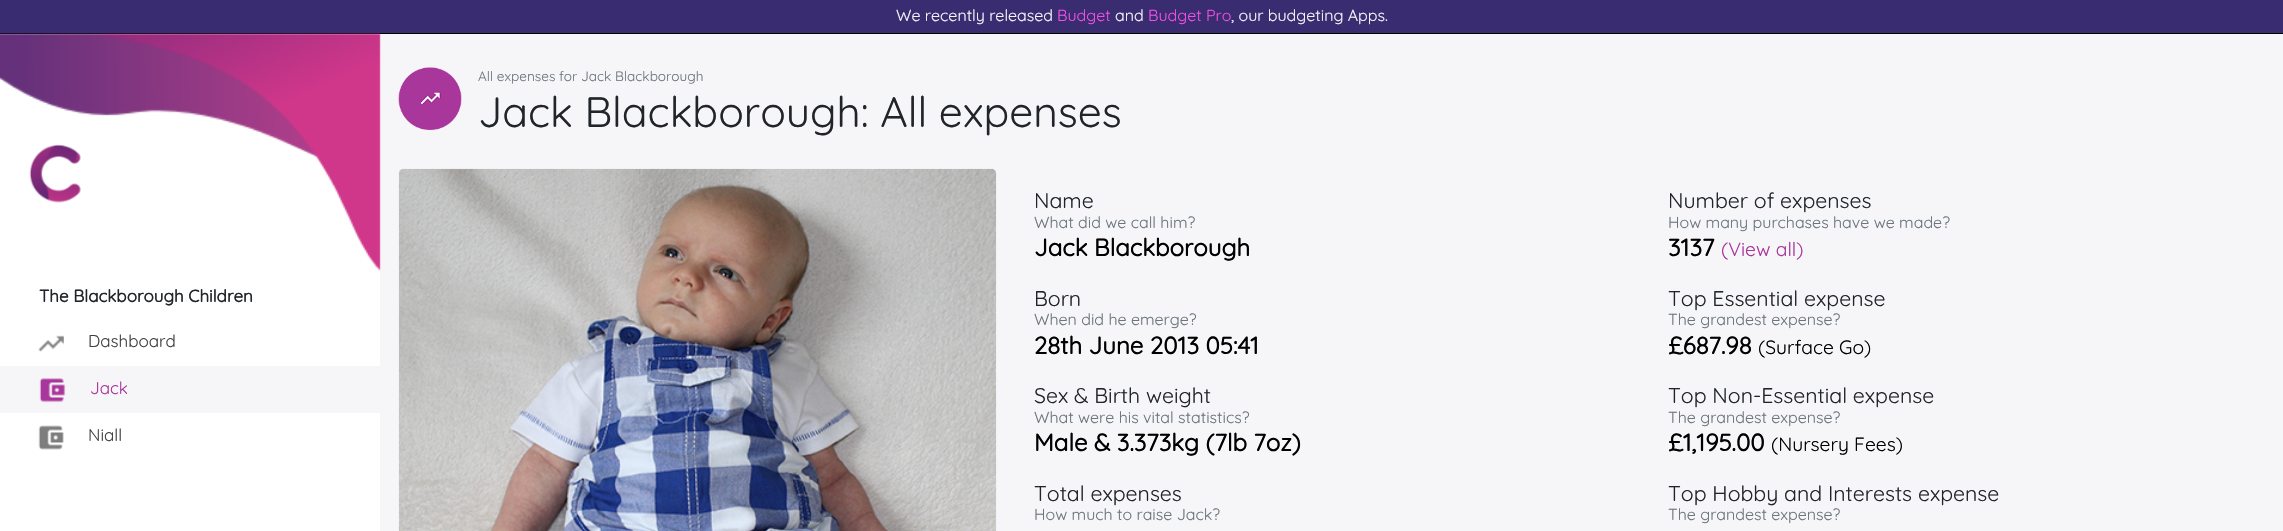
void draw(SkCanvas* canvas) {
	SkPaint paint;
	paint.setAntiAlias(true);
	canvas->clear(0xfff6f5f8);
	paint.setColor(0xff392c70);
	canvas->drawRect(SkRect::MakeXYWH(0, 0, 2283, 33), paint);
	paint.setColor(0xff000000);
	canvas->drawRect(SkRect::MakeXYWH(0, 33, 2283, 1), paint);
	SkFont f1(fontMgr->matchFamilyStyle("Quicksand", SkFontStyle(300, SkFontStyle::kNormal_Width, SkFontStyle::kUpright_Slant)), 16);
	f1.setSubpixel(true);
	paint.setColor(0xfff5f5f8);
	canvas->drawString("We recently released", 896, 21, f1, paint);
	paint.setColor(0xfff250e2);
	canvas->drawString("Budget", 1057, 21, f1, paint);
	paint.setColor(0xfff5f5f8);
	canvas->drawString("and", 1115, 21, f1, paint);
	paint.setColor(0xfff250e2);
	canvas->drawString("Budget Pro", 1148, 21, f1, paint);
	paint.setColor(0xfff5f5f8);
	canvas->drawString(", our budgeting Apps.", 1231, 21, f1, paint);
	paint.setColor(0xffffffff);
	canvas->drawRect(SkRect::MakeXYWH(0, 34, 380, 497), paint);
	canvas->drawImageRect(SkImages::DeferredFromEncodedData(SkData::MakeFromFileName("img1.png")), SkRect::MakeXYWH(0, 33, 381, 238), SkSamplingOptions());
	canvas->drawImageRect(SkImages::DeferredFromEncodedData(SkData::MakeFromFileName("img2.png")), SkRect::MakeXYWH(29, 144, 52, 59), SkSamplingOptions());
	SkFont f2(fontMgr->matchFamilyStyle("Quicksand", SkFontStyle::Bold()), 17);
	f2.setSubpixel(true);
	paint.setColor(0xff212529);
	canvas->drawString("The Blackborough Children", 39, 302, f2, paint);
	canvas->drawImageRect(SkImages::DeferredFromEncodedData(SkData::MakeFromFileName("img3.png")), SkRect::MakeXYWH(38, 335, 26, 17), SkSamplingOptions());
	SkFont f3(fontMgr->matchFamilyStyle("Quicksand", SkFontStyle(300, SkFontStyle::kNormal_Width, SkFontStyle::kUpright_Slant)), 17);
	f3.setSubpixel(true);
	paint.setColor(0xff404040);
	canvas->drawString("Dashboard", 88, 347, f3, paint);
	paint.setColor(0xfff6f5f8);
	canvas->drawRect(SkRect::MakeXYWH(0, 366, 380, 47), paint);
	canvas->drawImageRect(SkImages::DeferredFromEncodedData(SkData::MakeFromFileName("img4.png")), SkRect::MakeXYWH(39, 378, 27, 25), SkSamplingOptions());
	paint.setColor(0xffa8369b);
	canvas->drawString("Jack", 90, 394, f3, paint);
	canvas->drawImageRect(SkImages::DeferredFromEncodedData(SkData::MakeFromFileName("img5.png")), SkRect::MakeXYWH(38, 425, 26, 25), SkSamplingOptions());
	paint.setColor(0xff404040);
	canvas->drawString("Niall", 88, 441, f3, paint);
	canvas->drawImageRect(SkImages::DeferredFromEncodedData(SkData::MakeFromFileName("img6.png")), SkRect::MakeXYWH(398, 67, 64, 63), SkSamplingOptions());
	SkFont f4(fontMgr->matchFamilyStyle("Quicksand", SkFontStyle(300, SkFontStyle::kNormal_Width, SkFontStyle::kUpright_Slant)), 13.6);
	f4.setSubpixel(true);
	paint.setColor(0xff6c757d);
	canvas->drawString("All expenses for Jack Blackborough", 478, 81, f4, paint);
	SkFont f5(fontMgr->matchFamilyStyle("Quicksand", SkFontStyle(300, SkFontStyle::kNormal_Width, SkFontStyle::kUpright_Slant)), 42.5);
	f5.setSubpixel(true);
	paint.setColor(0xff212529);
	canvas->drawString("Jack Blackborough: All expenses", 478, 127, f5, paint);
	canvas->drawImageRect(SkImages::DeferredFromEncodedData(SkData::MakeFromFileName("img7.png")), SkRect::MakeXYWH(398, 168, 599, 363), SkSamplingOptions());
	SkFont f6(fontMgr->matchFamilyStyle("Quicksand", SkFontStyle(300, SkFontStyle::kNormal_Width, SkFontStyle::kUpright_Slant)), 21.25);
	f6.setSubpixel(true);
	canvas->drawString("Name", 1034, 208, f6, paint);
	paint.setColor(0xff6c757d);
	canvas->drawString("What did we call him?", 1034, 228, f1, paint);
	SkFont f7(fontMgr->matchFamilyStyle("Quicksand", SkFontStyle::Bold()), 24);
	f7.setSubpixel(true);
	paint.setColor(0xff000000);
	canvas->drawString("Jack Blackborough", 1034, 256, f7, paint);
	paint.setColor(0xff212529);
	canvas->drawString("Born", 1034, 306, f6, paint);
	paint.setColor(0xff6c757d);
	canvas->drawString("When did he emerge?", 1034, 325, f1, paint);
	paint.setColor(0xff000000);
	canvas->drawString("28th June 2013 05:41", 1034, 354, f7, paint);
	paint.setColor(0xff212529);
	canvas->drawString("Sex & Birth weight", 1034, 403, f6, paint);
	paint.setColor(0xff6c757d);
	canvas->drawString("What were his vital statistics?", 1034, 423, f1, paint);
	paint.setColor(0xff000000);
	canvas->drawString("Male & 3.373kg (7lb 7oz)", 1034, 451, f7, paint);
	paint.setColor(0xff212529);
	canvas->drawString("Total expenses", 1034, 501, f6, paint);
	paint.setColor(0xff6c757d);
	canvas->drawString("How much to raise Jack?", 1034, 520, f1, paint);
	paint.setColor(0xff212529);
	canvas->drawString("Number of expenses", 1668, 208, f6, paint);
	paint.setColor(0xff6c757d);
	canvas->drawString("How many purchases have we made?", 1668, 228, f1, paint);
	paint.setColor(0xff000000);
	canvas->drawString("3137", 1668, 256, f7, paint);
	SkFont f8(fontMgr->matchFamilyStyle("Quicksand", SkFontStyle(300, SkFontStyle::kNormal_Width, SkFontStyle::kUpright_Slant)), 19.25);
	f8.setSubpixel(true);
	paint.setColor(0xffa8369b);
	canvas->drawString("(View all)", 1721, 256, f8, paint);
	paint.setColor(0xff212529);
	canvas->drawString("Top Essential expense", 1668, 306, f6, paint);
	paint.setColor(0xff6c757d);
	canvas->drawString("The grandest expense?", 1668, 325, f1, paint);
	paint.setColor(0xff000000);
	canvas->drawString("£687.98", 1668, 354, f7, paint);
	canvas->drawString("(Surface Go)", 1758, 354, f8, paint);
	paint.setColor(0xff212529);
	canvas->drawString("Top Non-Essential expense", 1668, 403, f6, paint);
	paint.setColor(0xff6c757d);
	canvas->drawString("The grandest expense?", 1668, 423, f1, paint);
	paint.setColor(0xff000000);
	canvas->drawString("£1,195.00", 1668, 451, f7, paint);
	canvas->drawString("(Nursery Fees)", 1771, 451, f8, paint);
	paint.setColor(0xff212529);
	canvas->drawString("Top Hobby and Interests expense", 1668, 501, f6, paint);
	paint.setColor(0xff6c757d);
	canvas->drawString("The grandest expense?", 1668, 520, f1, paint);
}
